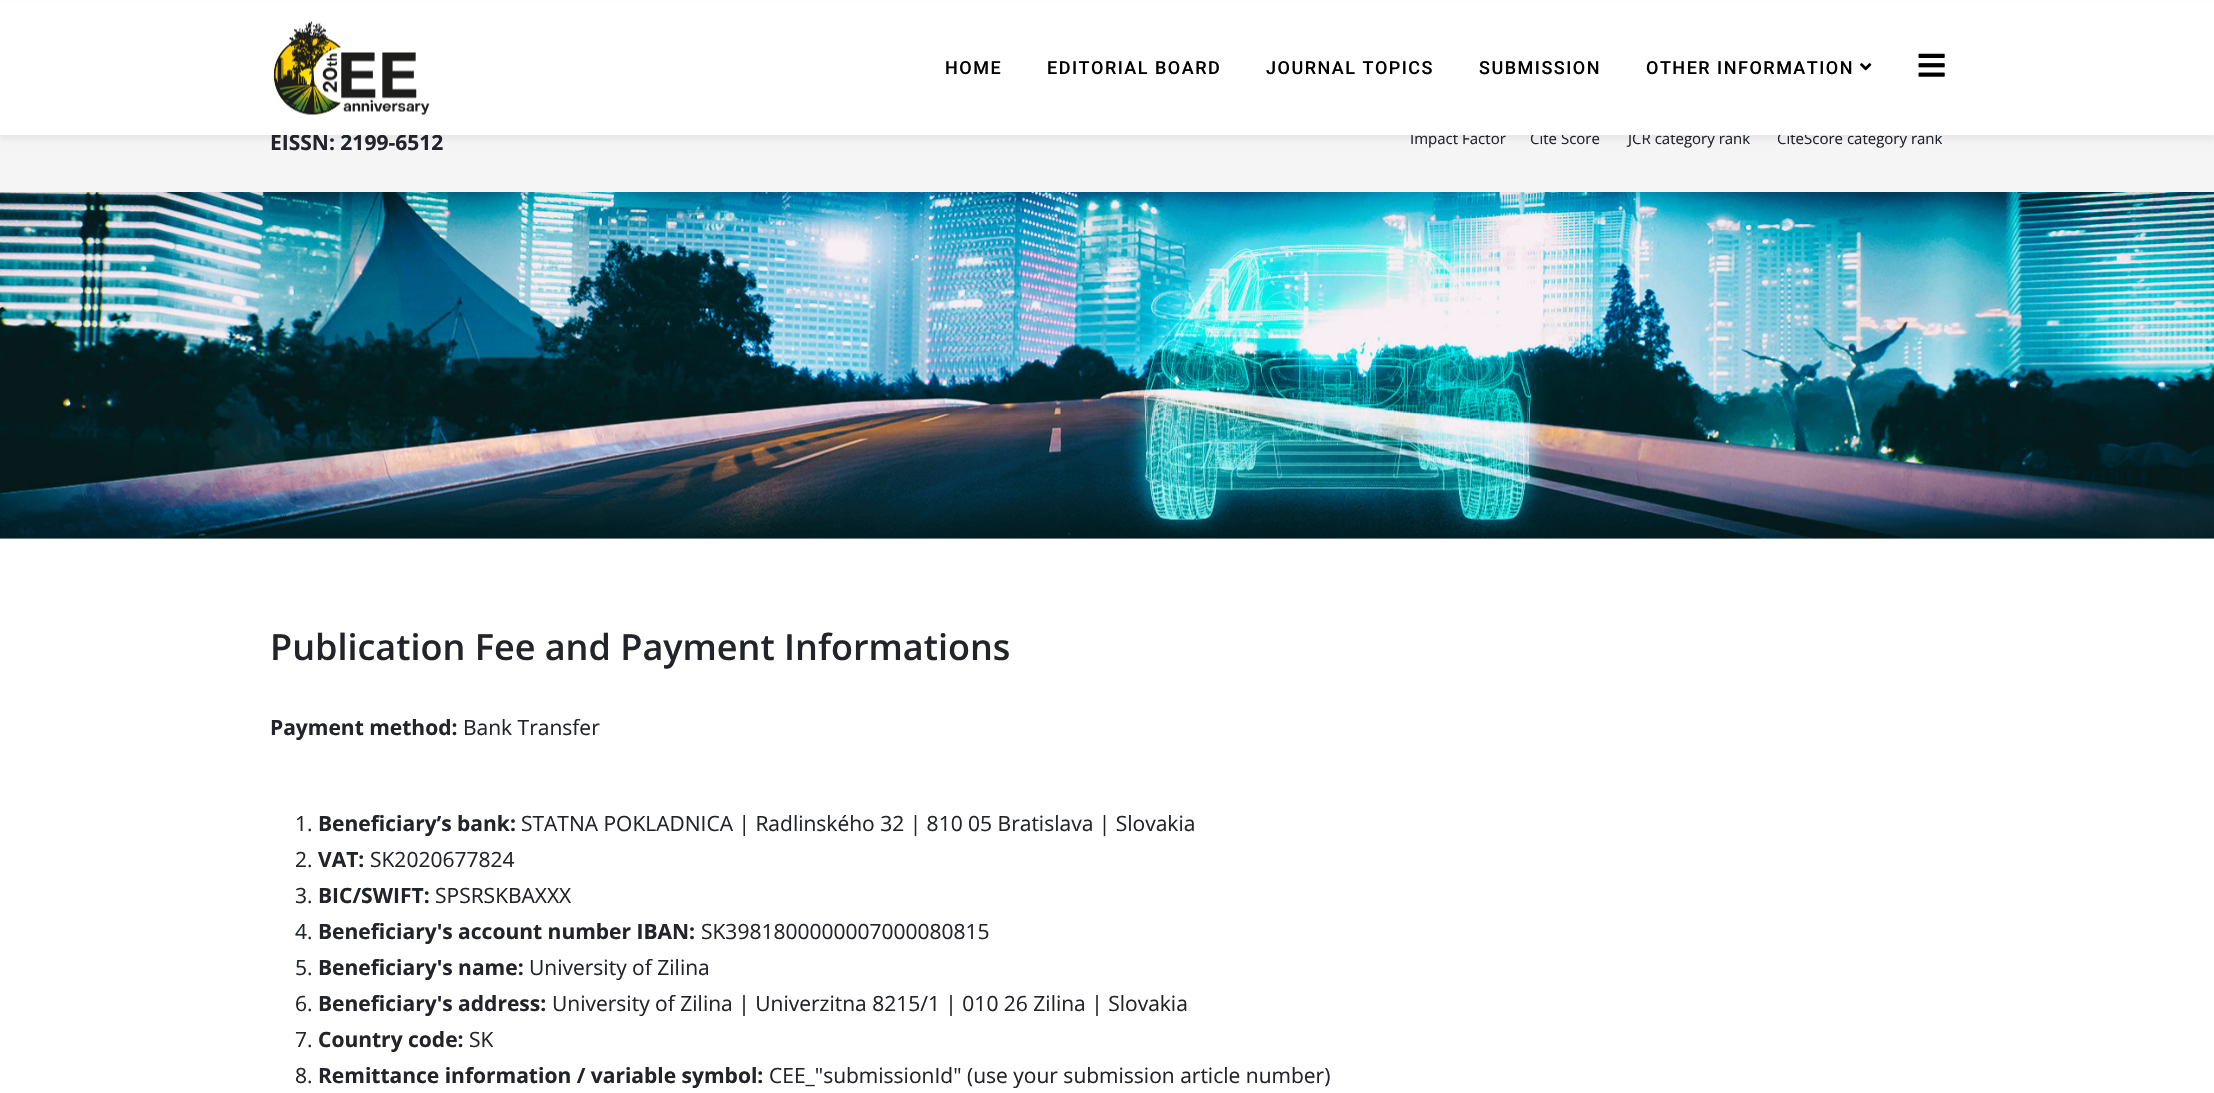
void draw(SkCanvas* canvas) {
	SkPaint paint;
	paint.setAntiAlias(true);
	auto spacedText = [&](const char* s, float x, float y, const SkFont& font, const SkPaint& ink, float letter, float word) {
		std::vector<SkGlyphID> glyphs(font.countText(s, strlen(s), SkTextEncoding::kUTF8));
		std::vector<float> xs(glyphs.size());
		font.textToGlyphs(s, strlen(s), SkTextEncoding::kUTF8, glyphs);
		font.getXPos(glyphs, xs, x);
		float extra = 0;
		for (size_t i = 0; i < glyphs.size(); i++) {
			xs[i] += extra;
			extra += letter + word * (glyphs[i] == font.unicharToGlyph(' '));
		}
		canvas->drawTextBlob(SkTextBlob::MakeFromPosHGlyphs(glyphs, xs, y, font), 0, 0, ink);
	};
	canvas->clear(0xffffffff);
	paint.setColor(0xfff5f5f5);
	canvas->drawRect(SkRect::MakeXYWH(0, 135, 2214, 57), paint);
	paint.setColor(0x0d000000);
	paint.setMaskFilter(SkMaskFilter::MakeBlur(kNormal_SkBlurStyle, 2));
	canvas->drawRect(SkRect::MakeXYWH(0, 5, 2214, 135), paint);
	paint.setMaskFilter(nullptr);
	SkFont f1(fontMgr->matchFamilyStyle("Open Sans", SkFontStyle::Bold()), 21);
	f1.setSubpixel(true);
	paint.setColor(0xff212529);
	canvas->drawString("EISSN: 2199-6512", 270, 150, f1, paint);
	SkFont f2(fontMgr->matchFamilyStyle("Open Sans", SkFontStyle::Normal()), 15);
	f2.setSubpixel(true);
	canvas->drawString("Impact Factor", 1410, 144, f2, paint);
	canvas->drawString("Cite Score", 1530, 144, f2, paint);
	canvas->drawString("JCR category rank", 1628, 144, f2, paint);
	canvas->drawString("CiteScore category rank", 1777, 144, f2, paint);
	paint.setColor(0xffffffff);
	canvas->drawRect(SkRect::MakeXYWH(0, 3, 2214, 132), paint);
	canvas->drawImageRect(SkImages::DeferredFromEncodedData(SkData::MakeFromFileName("img1.png")), SkRect::MakeXYWH(273, 21, 157, 94), SkSamplingOptions());
	SkFont f3(fontMgr->matchFamilyStyle("Roboto", SkFontStyle(500, SkFontStyle::kNormal_Width, SkFontStyle::kUpright_Slant)), 18);
	f3.setSubpixel(true);
	paint.setColor(0xff000000);
	spacedText("HOME", 945, 74, f3, paint, 1.5, 0);
	spacedText("EDITORIAL BOARD", 1047, 74, f3, paint, 1.5, 0);
	spacedText("JOURNAL TOPICS", 1266, 74, f3, paint, 1.5, 0);
	spacedText("SUBMISSION", 1479, 74, f3, paint, 1.5, 0);
	spacedText("OTHER INFORMATION", 1646, 74, f3, paint, 1.5, 0);
	canvas->drawImageRect(SkImages::DeferredFromEncodedData(SkData::MakeFromFileName("img2.png")), SkRect::MakeXYWH(1860, 63, 12, 8), SkSamplingOptions());
	canvas->drawImageRect(SkImages::DeferredFromEncodedData(SkData::MakeFromFileName("img3.png")), SkRect::MakeXYWH(1918, 53, 27, 24), SkSamplingOptions());
	canvas->drawImageRect(SkImages::DeferredFromEncodedData(SkData::MakeFromFileName("img4.png")), SkRect::MakeXYWH(0, 192, 2214, 347), SkSamplingOptions());
	SkFont f4(fontMgr->matchFamilyStyle("Open Sans", SkFontStyle(600, SkFontStyle::kNormal_Width, SkFontStyle::kUpright_Slant)), 36);
	f4.setSubpixel(true);
	paint.setColor(0xff212529);
	canvas->drawString("Publication Fee and Payment Informations", 270, 660, f4, paint);
	canvas->drawString("Payment method:", 270, 735, f1, paint);
	SkFont f5(fontMgr->matchFamilyStyle("Open Sans", SkFontStyle::Normal()), 21);
	f5.setSubpixel(true);
	canvas->drawString("Bank Transfer", 463, 735, f5, paint);
	canvas->drawString("1.", 295, 831, f5, paint);
	canvas->drawString("Beneficiary’s bank:", 318, 831, f1, paint);
	canvas->drawString("STATNA POKLADNICA | Radlinského 32 | 810 05 Bratislava | Slovakia", 521, 831, f5, paint);
	canvas->drawString("2.", 295, 867, f5, paint);
	canvas->drawString("VAT:", 318, 867, f1, paint);
	canvas->drawString("SK2020677824", 370, 867, f5, paint);
	canvas->drawString("3.", 295, 903, f5, paint);
	canvas->drawString("BIC/SWIFT:", 318, 903, f1, paint);
	canvas->drawString("SPSRSKBAXXX", 435, 903, f5, paint);
	canvas->drawString("4.", 295, 939, f5, paint);
	canvas->drawString("Beneficiary's account number IBAN:", 318, 939, f1, paint);
	canvas->drawString("SK3981800000007000080815", 701, 939, f5, paint);
	canvas->drawString("5.", 295, 975, f5, paint);
	canvas->drawString("Beneficiary's name:", 318, 975, f1, paint);
	canvas->drawString("University of Zilina", 529, 975, f5, paint);
	canvas->drawString("6.", 295, 1011, f5, paint);
	canvas->drawString("Beneficiary's address:", 318, 1011, f1, paint);
	canvas->drawString("University of Zilina | Univerzitna 8215/1 | 010 26 Zilina | Slovakia", 552, 1011, f5, paint);
	canvas->drawString("7.", 295, 1047, f5, paint);
	canvas->drawString("Country code:", 318, 1047, f1, paint);
	canvas->drawString("SK", 469, 1047, f5, paint);
	canvas->drawString("8.", 295, 1083, f5, paint);
	canvas->drawString("Remittance information / variable symbol:", 318, 1083, f1, paint);
	canvas->drawString("CEE_\"submissionId\" (use your submission article number)", 769, 1083, f5, paint);
}
